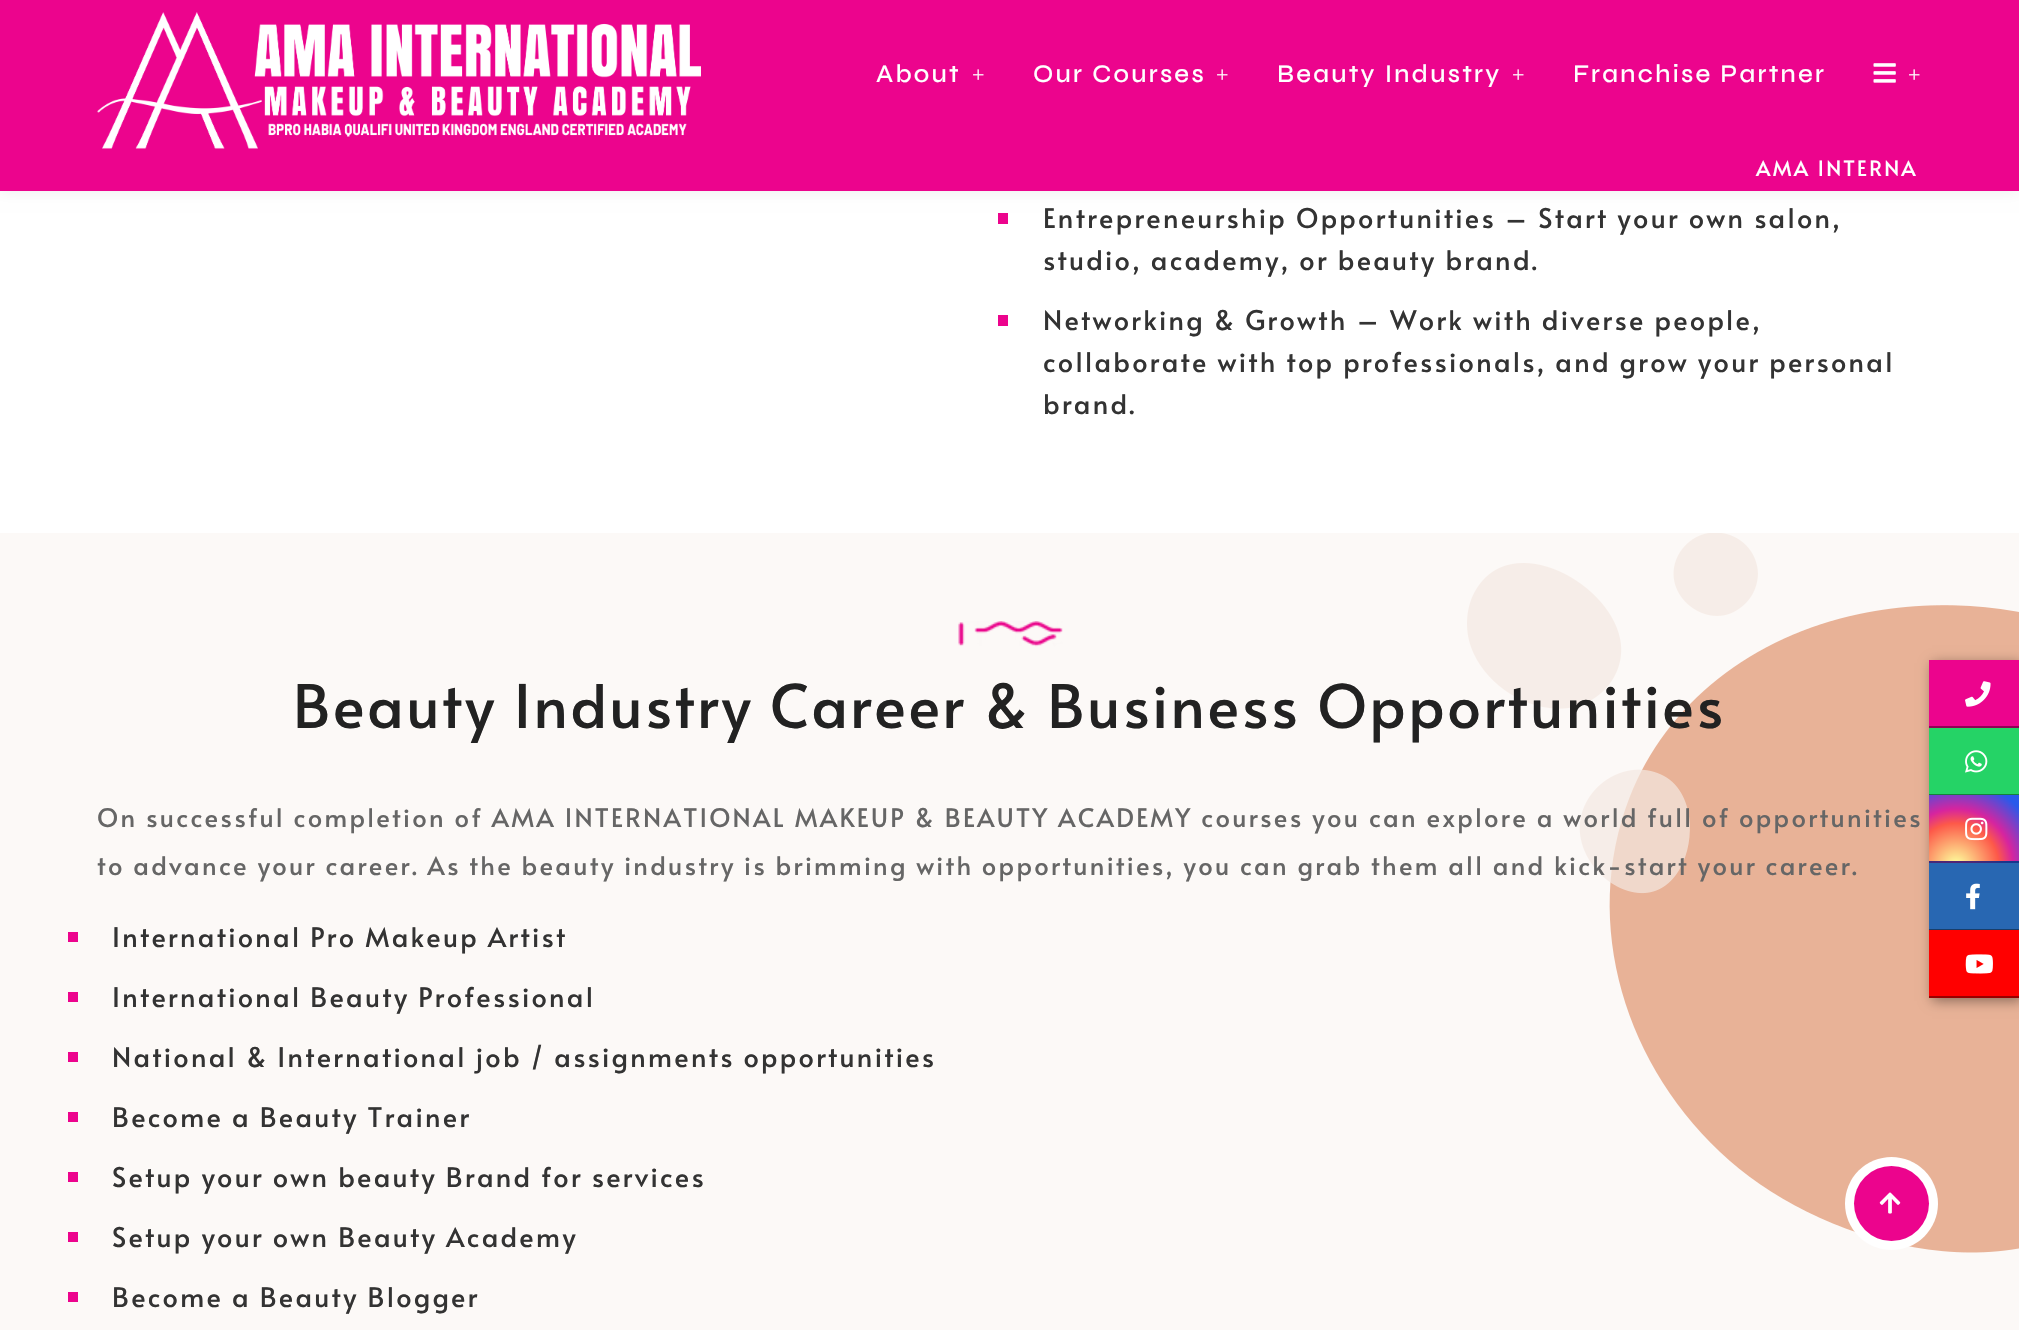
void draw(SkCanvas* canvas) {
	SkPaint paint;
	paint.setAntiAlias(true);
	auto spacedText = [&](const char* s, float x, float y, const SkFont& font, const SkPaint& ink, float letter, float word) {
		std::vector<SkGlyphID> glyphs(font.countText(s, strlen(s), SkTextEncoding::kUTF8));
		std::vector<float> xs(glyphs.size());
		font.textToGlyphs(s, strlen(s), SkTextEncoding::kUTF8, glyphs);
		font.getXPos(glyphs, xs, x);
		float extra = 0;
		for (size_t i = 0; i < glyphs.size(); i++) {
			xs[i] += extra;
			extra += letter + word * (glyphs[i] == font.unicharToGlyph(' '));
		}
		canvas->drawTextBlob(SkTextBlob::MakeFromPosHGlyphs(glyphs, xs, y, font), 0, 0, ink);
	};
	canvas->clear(0xffffffff);
	paint.setColor(0xffec048d);
	canvas->drawRect(SkRect::MakeXYWH(998, 213, 10, 11), paint);
	paint.setColor(0x12000000);
	paint.setMaskFilter(SkMaskFilter::MakeBlur(kNormal_SkBlurStyle, 7.5));
	canvas->drawRect(SkRect::MakeXYWH(0, 0, 2019, 191), paint);
	paint.setMaskFilter(nullptr);
	paint.setColor(0xffec048d);
	canvas->drawRect(SkRect::MakeXYWH(0, 0, 2019, 191), paint);
	canvas->drawImageRect(SkImages::DeferredFromEncodedData(SkData::MakeFromFileName("img1.png")), SkRect::MakeXYWH(97, 12, 604, 137), SkSamplingOptions());
	SkFont f1(fontMgr->matchFamilyStyle("Syne", SkFontStyle(500, SkFontStyle::kNormal_Width, SkFontStyle::kUpright_Slant)), 25.5);
	f1.setSubpixel(true);
	paint.setColor(0xffffffff);
	spacedText("About", 876, 82, f1, paint, 2.25, 0);
	SkFont f2(fontMgr->matchFamilyStyle("Liberation Serif", SkFontStyle::Normal()), 22);
	f2.setSubpixel(true);
	spacedText("+", 972, 82, f2, paint, 2.25, 0);
	spacedText("Our Courses", 1033, 82, f1, paint, 2.25, 0);
	spacedText("+", 1216, 82, f2, paint, 2.25, 0);
	spacedText("Beauty Industry", 1277, 82, f1, paint, 2.25, 0);
	spacedText("+", 1512, 82, f2, paint, 2.25, 0);
	spacedText("Franchise Partner", 1573, 82, f1, paint, 2.25, 0);
	canvas->drawImageRect(SkImages::DeferredFromEncodedData(SkData::MakeFromFileName("img2.png")), SkRect::MakeXYWH(1873, 63, 23, 20), SkSamplingOptions());
	spacedText("+", 1908, 82, f2, paint, 2.25, 0);
	SkFont f3(fontMgr->matchFamilyStyle("Alata", SkFontStyle::Normal()), 21);
	f3.setSubpixel(true);
	spacedText("AMA INTERNA", 1756, 176, f3, paint, 2.25, 0);
	SkFont f4(fontMgr->matchFamilyStyle("Alata", SkFontStyle::Normal()), 27);
	f4.setSubpixel(true);
	paint.setColor(0xff333333);
	spacedText("Entrepreneurship Opportunities – Start your own salon,", 1043, 228, f4, paint, 2.25, 0);
	spacedText("studio, academy, or beauty brand.", 1043, 270, f4, paint, 2.25, 0);
	paint.setColor(0xffec048d);
	canvas->drawRect(SkRect::MakeXYWH(998, 315, 10, 11), paint);
	paint.setColor(0xff333333);
	spacedText("Networking & Growth – Work with diverse people,", 1043, 330, f4, paint, 2.25, 0);
	spacedText("collaborate with top professionals, and grow your personal", 1043, 372, f4, paint, 2.25, 0);
	spacedText("brand.", 1043, 414, f4, paint, 2.25, 0);
	paint.setColor(0xfffcf9f7);
	canvas->drawRect(SkRect::MakeXYWH(0, 533, 2019, 797), paint);
	canvas->drawImageRect(SkImages::DeferredFromEncodedData(SkData::MakeFromFileName("img3.png")), SkRect::MakeXYWH(1467, 533, 552, 720), SkSamplingOptions());
	canvas->drawImageRect(SkImages::DeferredFromEncodedData(SkData::MakeFromFileName("img4.png")), SkRect::MakeXYWH(958, 621, 105, 26), SkSamplingOptions());
	SkFont f5(fontMgr->matchFamilyStyle("Alata", SkFontStyle::Normal()), 60);
	f5.setSubpixel(true);
	paint.setColor(0xff222222);
	spacedText("Beauty Industry Career & Business Opportunities", 293, 728, f5, paint, 2.25, 0);
	SkFont f6(fontMgr->matchFamilyStyle("Alata", SkFontStyle::Normal()), 25.5);
	f6.setSubpixel(true);
	paint.setColor(0xff666666);
	spacedText("On successful completion of AMA INTERNATIONAL MAKEUP & BEAUTY ACADEMY courses you can explore a world full of opportunities", 97, 827, f6, paint, 2.25, 0.2);
	spacedText("to advance your career. As the beauty industry is brimming with opportunities, you can grab them all and kick-start your career.", 97, 875, f6, paint, 2.25, 0);
	paint.setColor(0xffec048d);
	canvas->drawRect(SkRect::MakeXYWH(68, 932, 10, 10), paint);
	paint.setColor(0xff333333);
	spacedText("International Pro Makeup Artist", 112, 947, f4, paint, 2.25, 0);
	paint.setColor(0xffec048d);
	canvas->drawRect(SkRect::MakeXYWH(68, 992, 10, 10), paint);
	paint.setColor(0xff333333);
	spacedText("International Beauty Professional", 112, 1007, f4, paint, 2.25, 0);
	paint.setColor(0xffec048d);
	canvas->drawRect(SkRect::MakeXYWH(68, 1052, 10, 10), paint);
	paint.setColor(0xff333333);
	spacedText("National & International job / assignments opportunities", 112, 1067, f4, paint, 2.25, 0);
	paint.setColor(0xffec048d);
	canvas->drawRect(SkRect::MakeXYWH(68, 1112, 10, 10), paint);
	paint.setColor(0xff333333);
	spacedText("Become a Beauty Trainer", 112, 1127, f4, paint, 2.25, 0);
	paint.setColor(0xffec048d);
	canvas->drawRect(SkRect::MakeXYWH(68, 1172, 10, 10), paint);
	paint.setColor(0xff333333);
	spacedText("Setup your own beauty Brand for services", 112, 1187, f4, paint, 2.25, 0);
	paint.setColor(0xffec048d);
	canvas->drawRect(SkRect::MakeXYWH(68, 1232, 10, 10), paint);
	paint.setColor(0xff333333);
	spacedText("Setup your own Beauty Academy", 112, 1247, f4, paint, 2.25, 0);
	paint.setColor(0xffec048d);
	canvas->drawRect(SkRect::MakeXYWH(68, 1292, 10, 10), paint);
	paint.setColor(0xff333333);
	spacedText("Become a Beauty Blogger", 112, 1307, f4, paint, 2.25, 0);
	paint.setColor(0x66000000);
	paint.setMaskFilter(SkMaskFilter::MakeBlur(kNormal_SkBlurStyle, 6));
	canvas->drawRect(SkRect::MakeXYWH(1932, 663, 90, 338), paint);
	paint.setMaskFilter(nullptr);
	paint.setColor(0xffec048d);
	canvas->drawRect(SkRect::MakeXYWH(1929, 660, 90, 66), paint);
	paint.setColor(0xff8e0255);
	canvas->drawRect(SkRect::MakeXYWH(1929, 726, 90, 2), paint);
	canvas->drawImageRect(SkImages::DeferredFromEncodedData(SkData::MakeFromFileName("img5.png")), SkRect::MakeXYWH(1965, 681, 26, 26), SkSamplingOptions());
	paint.setColor(0xff25d366);
	canvas->drawRect(SkRect::MakeXYWH(1929, 728, 90, 67), paint);
	paint.setColor(0x66000000);
	canvas->drawRect(SkRect::MakeXYWH(1929, 794, 90, 1), paint);
	canvas->drawImageRect(SkImages::DeferredFromEncodedData(SkData::MakeFromFileName("img6.png")), SkRect::MakeXYWH(1965, 750, 23, 23), SkSamplingOptions());
	{
		const SkColor colors[] = {0xfffdf497, 0xfffdf497, 0xfffd5949, 0xffd6249f, 0xff285aeb};
		const float stops[] = {0, 0.05, 0.45, 0.6, 0.9};
		paint.setShader(SkGradientShader::MakeRadial({1956, 866}, 95, colors, stops, 5, SkTileMode::kClamp));
		paint.setAlpha(255);
	}
	canvas->drawRect(SkRect::MakeXYWH(1929, 795, 90, 66), paint);
	{
		const SkColor colors[] = {0xfffdf497, 0xfffdf497, 0xfffd5949, 0xffd6249f, 0xff285aeb};
		const float stops[] = {0, 0.05, 0.45, 0.6, 0.9};
		paint.setShader(SkGradientShader::MakeRadial({1956, 932}, 95, colors, stops, 5, SkTileMode::kClamp));
		paint.setAlpha(255);
	}
	canvas->drawRect(SkRect::MakeXYWH(1929, 861, 90, 2), paint);
	paint.setShader(nullptr);
	paint.setColor(0x66000000);
	canvas->drawRect(SkRect::MakeXYWH(1929, 861, 90, 2), paint);
	canvas->drawImageRect(SkImages::DeferredFromEncodedData(SkData::MakeFromFileName("img7.png")), SkRect::MakeXYWH(1965, 817, 23, 24), SkSamplingOptions());
	paint.setColor(0xff2867b2);
	canvas->drawRect(SkRect::MakeXYWH(1929, 863, 90, 67), paint);
	paint.setColor(0x66000000);
	canvas->drawRect(SkRect::MakeXYWH(1929, 929, 90, 1), paint);
	canvas->drawImageRect(SkImages::DeferredFromEncodedData(SkData::MakeFromFileName("img8.png")), SkRect::MakeXYWH(1966, 883, 14, 27), SkSamplingOptions());
	paint.setColor(0xffff0000);
	canvas->drawRect(SkRect::MakeXYWH(1929, 930, 90, 66), paint);
	paint.setColor(0xff990000);
	canvas->drawRect(SkRect::MakeXYWH(1929, 996, 90, 2), paint);
	canvas->drawImageRect(SkImages::DeferredFromEncodedData(SkData::MakeFromFileName("img9.png")), SkRect::MakeXYWH(1965, 954, 28, 20), SkSamplingOptions());
	paint.setColor(0xffffffff);
	canvas->drawCircle(1891.5, 1203.5, 46.5, paint);
	paint.setColor(0xffec048d);
	canvas->drawCircle(1891.5, 1203.5, 37.5, paint);
	canvas->drawImageRect(SkImages::DeferredFromEncodedData(SkData::MakeFromFileName("img10.png")), SkRect::MakeXYWH(1879, 1192, 22, 22), SkSamplingOptions());
}
